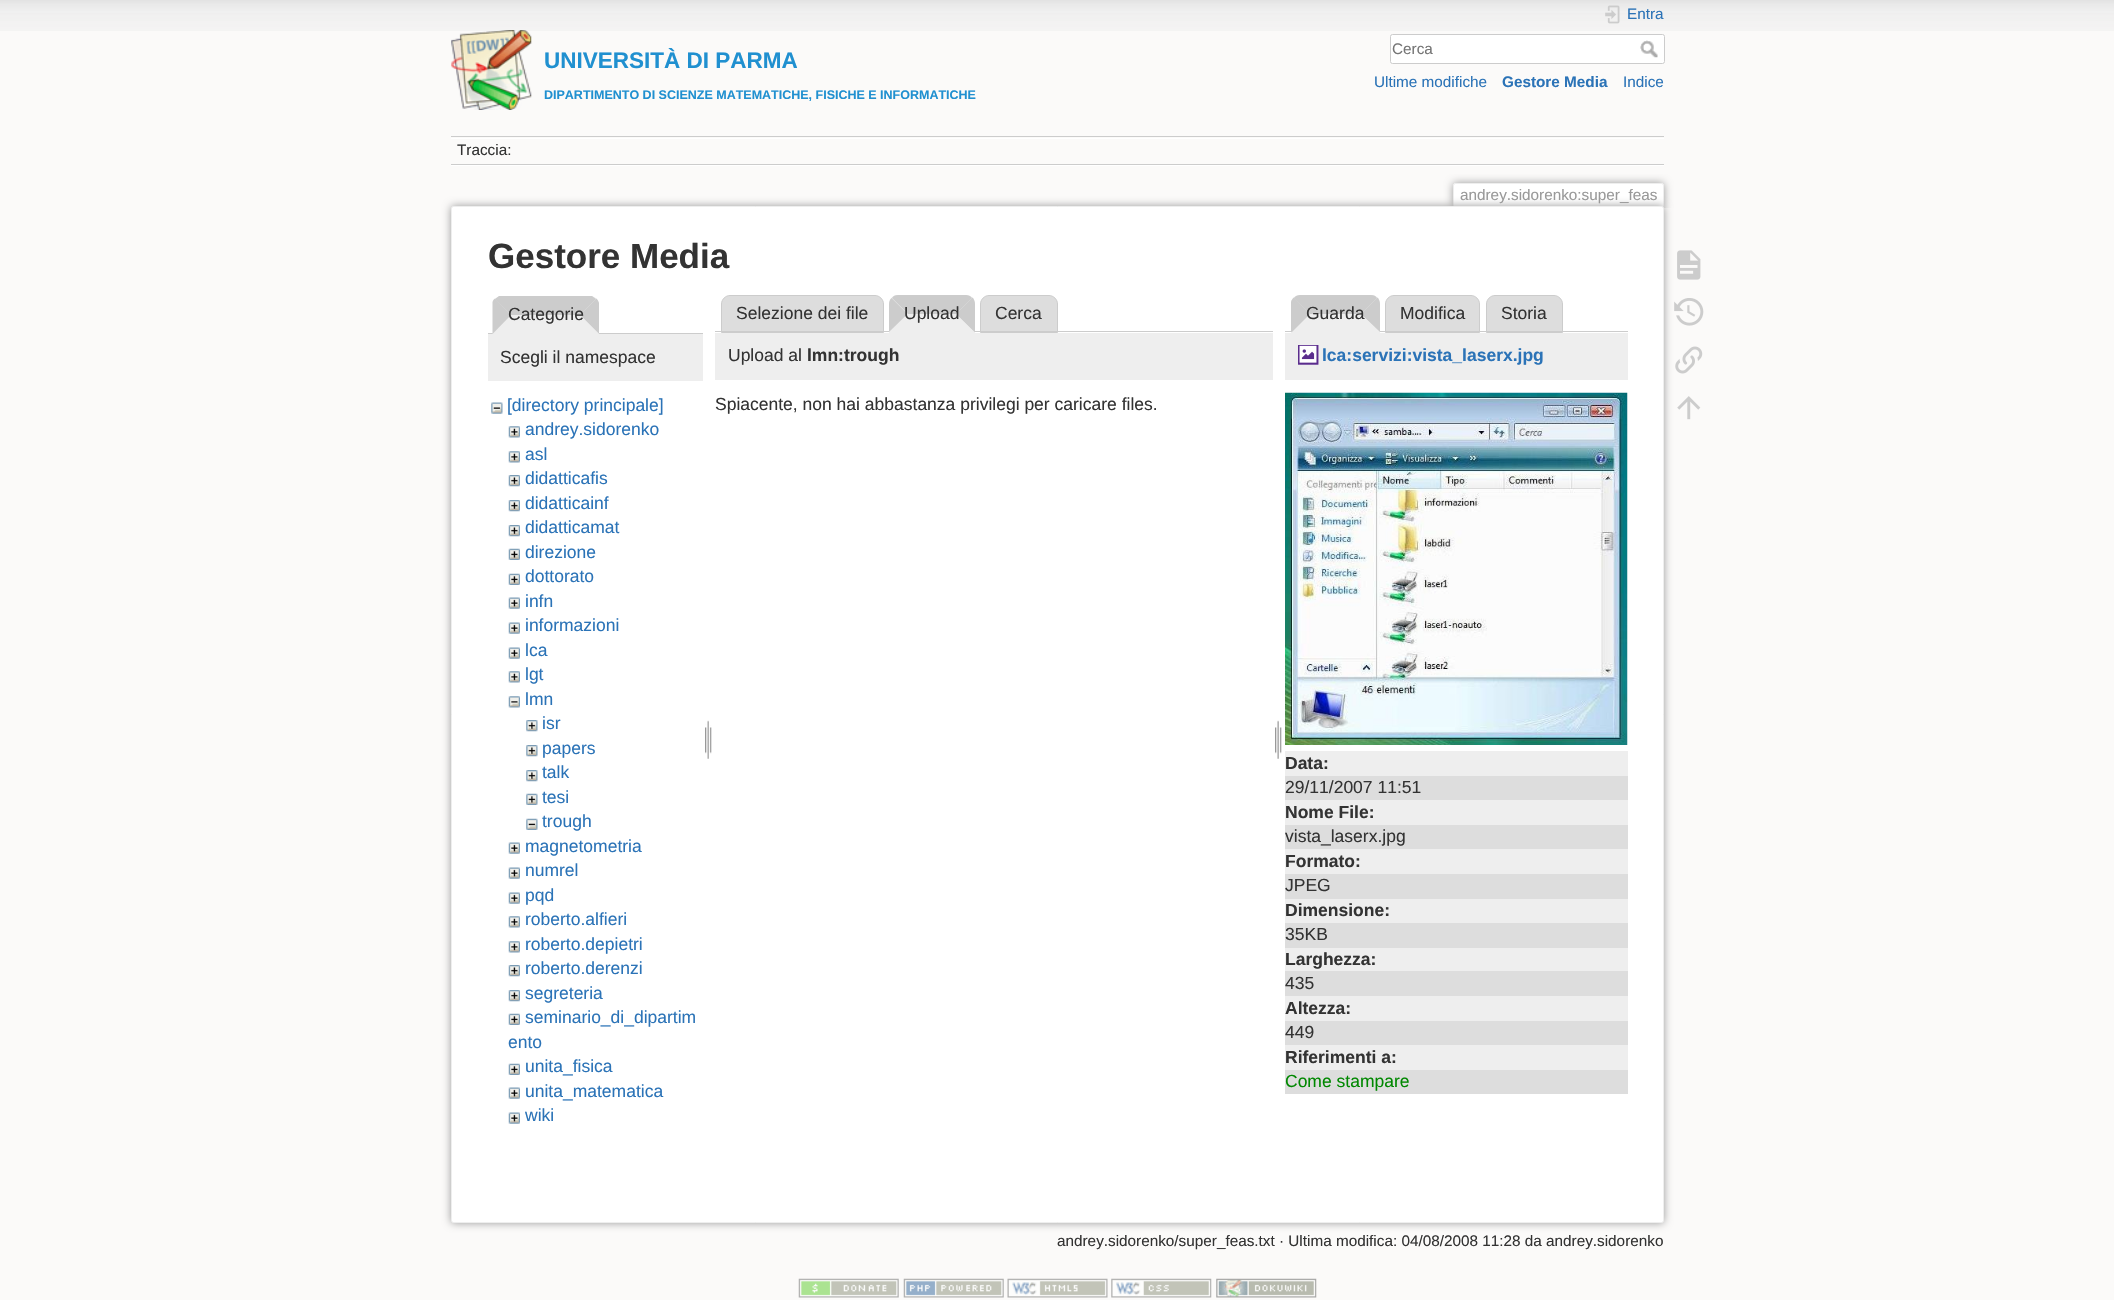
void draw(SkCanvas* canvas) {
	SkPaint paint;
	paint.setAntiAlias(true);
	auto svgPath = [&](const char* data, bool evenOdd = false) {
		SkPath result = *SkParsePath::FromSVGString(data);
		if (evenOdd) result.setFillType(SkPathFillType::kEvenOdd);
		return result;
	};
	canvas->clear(0xfffbfaf9);
	canvas->drawImageRect(SkImages::DeferredFromEncodedData(SkData::MakeFromFileName("img1.png")), SkRect::MakeXYWH(0, 0, 2114, 31), SkSamplingOptions());
	canvas->drawImageRect(SkImages::DeferredFromEncodedData(SkData::MakeFromFileName("img2.png")), SkRect::MakeXYWH(451, 30, 81, 80), SkSamplingOptions());
	SkFont f1(fontMgr->matchFamilyStyle("Liberation Sans", SkFontStyle::Bold()), 22.5);
	f1.setSubpixel(true);
	paint.setColor(0xff2090d0);
	canvas->drawString("UNIVERSITÀ DI PARMA", 544, 68, f1, paint);
	SkFont f2(fontMgr->matchFamilyStyle("Liberation Sans", SkFontStyle::Bold()), 12.5);
	f2.setSubpixel(true);
	canvas->drawString("DIPARTIMENTO DI SCIENZE MATEMATICHE, FISICHE E INFORMATICHE", 544, 99, f2, paint);
	canvas->drawImageRect(SkImages::DeferredFromEncodedData(SkData::MakeFromFileName("img3.png")), SkRect::MakeXYWH(1605, 5, 15, 19), SkSamplingOptions());
	SkFont f3(fontMgr->matchFamilyStyle("Liberation Sans", SkFontStyle::Normal()), 15.3);
	f3.setSubpixel(true);
	paint.setColor(0xff2b73b7);
	canvas->drawString("Entra", 1627, 19, f3, paint);
	paint.setColor(0xffffffff);
	canvas->drawRoundRect(SkRect::MakeXYWH(1390.5, 34.5, 274, 29), 2, 2, paint);
	paint.setStroke(true);
	paint.setStrokeWidth(1);
	paint.setColor(0xffcccccc);
	canvas->drawRoundRect(SkRect::MakeXYWH(1390.5, 34.5, 274, 29), 2, 2, paint);
	paint.setStroke(false);
	paint.setColor(0xff757575);
	canvas->drawString("Cerca", 1392, 54, f3, paint);
	canvas->drawImageRect(SkImages::DeferredFromEncodedData(SkData::MakeFromFileName("img4.png")), SkRect::MakeXYWH(1640, 40, 18, 18), SkSamplingOptions());
	paint.setColor(0xff2b73b7);
	canvas->drawString("Ultime modifiche", 1374, 87, f3, paint);
	SkFont f4(fontMgr->matchFamilyStyle("Liberation Sans", SkFontStyle::Bold()), 15.3);
	f4.setSubpixel(true);
	canvas->drawString("Gestore Media", 1502, 87, f4, paint);
	canvas->drawString("Indice", 1623, 87, f3, paint);
	paint.setColor(0xffcccccc);
	canvas->drawRect(SkRect::MakeXYWH(451, 136, 1213, 1), paint);
	paint.setColor(0xffffffff);
	canvas->drawRect(SkRect::MakeXYWH(451, 165, 1213, 1), paint);
	canvas->drawRect(SkRect::MakeXYWH(451, 138, 1213, 1), paint);
	paint.setColor(0xffcccccc);
	canvas->drawRect(SkRect::MakeXYWH(451, 164, 1213, 1), paint);
	paint.setColor(0xff333333);
	canvas->drawString("Traccia:", 457, 155, f3, paint);
	canvas->save();
	canvas->clipRect(SkRect::MakeXYWH(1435, 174, 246, 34));
	paint.setColor(0xff999999);
	paint.setMaskFilter(SkMaskFilter::MakeBlur(kNormal_SkBlurStyle, 4));
	canvas->drawRoundRect(SkRect::MakeXYWH(1453, 183, 211, 25), 2.5, 2.5, paint);
	paint.setMaskFilter(nullptr);
	canvas->restore();
	paint.setColor(0xffffffff);
	canvas->drawPath(svgPath("M1455 184H1662C1662.5 184 1663 184.5 1663 185V208H1454V185C1454 184.5 1454.5 184 1455 184Z"), paint);
	paint.setColor(0xffeeeeee);
	canvas->drawRect(SkRect::MakeXYWH(1454, 183, 209, 1), paint);
	canvas->drawRect(SkRect::MakeXYWH(1663, 184, 1, 24), paint);
	canvas->drawRect(SkRect::MakeXYWH(1453, 184, 1, 24), paint);
	paint.setColor(0xff999999);
	canvas->drawString("andrey.sidorenko:super_feas", 1460, 200, f3, paint);
	paint.setMaskFilter(SkMaskFilter::MakeBlur(kNormal_SkBlurStyle, 4.5));
	canvas->drawRoundRect(SkRect::MakeXYWH(451, 206, 1213, 1017), 2.5, 2.5, paint);
	paint.setMaskFilter(nullptr);
	paint.setColor(0xffffffff);
	canvas->drawRoundRect(SkRect::MakeXYWH(451.5, 206.5, 1212, 1016), 2, 2, paint);
	paint.setStroke(true);
	paint.setColor(0xffeeeeee);
	canvas->drawRoundRect(SkRect::MakeXYWH(451.5, 206.5, 1212, 1016), 2, 2, paint);
	SkFont f5(fontMgr->matchFamilyStyle("Liberation Sans", SkFontStyle::Bold()), 35);
	f5.setSubpixel(true);
	paint.setStroke(false);
	paint.setColor(0xff333333);
	canvas->drawString("Gestore Media", 488, 268, f5, paint);
	paint.setColor(0xffcccccc);
	canvas->drawRect(SkRect::MakeXYWH(488, 333, 215, 1), paint);
	paint.setColor(0xffeeeeee);
	canvas->drawPath(svgPath("M502 296H590C595 296 599 300 599 305V334H493V305C493 300 497 296 502 296Z"), paint);
	paint.setColor(0xffcccccc);
	canvas->drawPath(svgPath("M592 296H499L495 299L511 315H580L596 299Z"), paint);
	canvas->drawPath(svgPath("M596.5 298.5L580 315L599 334V303C598.5 301 597.5 300 596.5 298.5Z"), paint);
	paint.setColor(0xffeeeeee);
	canvas->drawPath(svgPath("M599 334L580 315H511L492 334Z"), paint);
	paint.setColor(0xffcccccc);
	canvas->drawPath(svgPath("M492.5 334L511 315L495 298.5C493.5 299.5 493 300.5 492.5 302Z"), paint);
	SkFont f6(fontMgr->matchFamilyStyle("Liberation Sans", SkFontStyle::Normal()), 17.5);
	f6.setSubpixel(true);
	paint.setColor(0xff333333);
	canvas->drawString("Categorie", 508, 320, f6, paint);
	paint.setColor(0xffeeeeee);
	canvas->drawRect(SkRect::MakeXYWH(488, 334, 215, 47), paint);
	paint.setColor(0xff333333);
	canvas->drawString("Scegli il namespace", 500, 363, f6, paint);
	canvas->drawImageRect(SkImages::DeferredFromEncodedData(SkData::MakeFromFileName("img5.png")), SkRect::MakeXYWH(491, 402, 12, 12), SkSamplingOptions());
	paint.setColor(0xff2b73b7);
	canvas->drawString("[directory principale]", 507, 411, f6, paint);
	canvas->drawImageRect(SkImages::DeferredFromEncodedData(SkData::MakeFromFileName("img6.png")), SkRect::MakeXYWH(508, 426, 12, 12), SkSamplingOptions());
	canvas->drawString("andrey.sidorenko", 525, 435, f6, paint);
	canvas->drawImageRect(SkImages::DeferredFromEncodedData(SkData::MakeFromFileName("img6.png")), SkRect::MakeXYWH(508, 451, 12, 12), SkSamplingOptions());
	canvas->drawString("asl", 525, 460, f6, paint);
	canvas->drawImageRect(SkImages::DeferredFromEncodedData(SkData::MakeFromFileName("img7.png")), SkRect::MakeXYWH(508, 475, 12, 12), SkSamplingOptions());
	canvas->drawString("didatticafis", 525, 484, f6, paint);
	canvas->drawImageRect(SkImages::DeferredFromEncodedData(SkData::MakeFromFileName("img7.png")), SkRect::MakeXYWH(508, 500, 12, 12), SkSamplingOptions());
	canvas->drawString("didatticainf", 525, 509, f6, paint);
	canvas->drawImageRect(SkImages::DeferredFromEncodedData(SkData::MakeFromFileName("img7.png")), SkRect::MakeXYWH(508, 525, 12, 12), SkSamplingOptions());
	canvas->drawString("didatticamat", 525, 533, f6, paint);
	canvas->drawImageRect(SkImages::DeferredFromEncodedData(SkData::MakeFromFileName("img8.png")), SkRect::MakeXYWH(508, 548, 12, 12), SkSamplingOptions());
	canvas->drawString("direzione", 525, 558, f6, paint);
	canvas->drawImageRect(SkImages::DeferredFromEncodedData(SkData::MakeFromFileName("img8.png")), SkRect::MakeXYWH(508, 573, 12, 12), SkSamplingOptions());
	canvas->drawString("dottorato", 525, 582, f6, paint);
	canvas->drawImageRect(SkImages::DeferredFromEncodedData(SkData::MakeFromFileName("img9.png")), SkRect::MakeXYWH(508, 597, 12, 12), SkSamplingOptions());
	canvas->drawString("infn", 525, 607, f6, paint);
	canvas->drawImageRect(SkImages::DeferredFromEncodedData(SkData::MakeFromFileName("img9.png")), SkRect::MakeXYWH(508, 622, 12, 12), SkSamplingOptions());
	canvas->drawString("informazioni", 525, 631, f6, paint);
	canvas->drawImageRect(SkImages::DeferredFromEncodedData(SkData::MakeFromFileName("img9.png")), SkRect::MakeXYWH(508, 647, 12, 12), SkSamplingOptions());
	canvas->drawString("lca", 525, 656, f6, paint);
	canvas->drawImageRect(SkImages::DeferredFromEncodedData(SkData::MakeFromFileName("img6.png")), SkRect::MakeXYWH(508, 671, 12, 12), SkSamplingOptions());
	canvas->drawString("lgt", 525, 680, f6, paint);
	canvas->drawImageRect(SkImages::DeferredFromEncodedData(SkData::MakeFromFileName("img10.png")), SkRect::MakeXYWH(508, 696, 12, 12), SkSamplingOptions());
	canvas->drawString("lmn", 525, 705, f6, paint);
	canvas->drawImageRect(SkImages::DeferredFromEncodedData(SkData::MakeFromFileName("img11.png")), SkRect::MakeXYWH(526, 720, 12, 12), SkSamplingOptions());
	canvas->drawString("isr", 542, 729, f6, paint);
	canvas->drawImageRect(SkImages::DeferredFromEncodedData(SkData::MakeFromFileName("img11.png")), SkRect::MakeXYWH(526, 745, 12, 12), SkSamplingOptions());
	canvas->drawString("papers", 542, 754, f6, paint);
	canvas->drawImageRect(SkImages::DeferredFromEncodedData(SkData::MakeFromFileName("img12.png")), SkRect::MakeXYWH(526, 770, 12, 12), SkSamplingOptions());
	canvas->drawString("talk", 542, 778, f6, paint);
	canvas->drawImageRect(SkImages::DeferredFromEncodedData(SkData::MakeFromFileName("img13.png")), SkRect::MakeXYWH(526, 793, 12, 12), SkSamplingOptions());
	canvas->drawString("tesi", 542, 803, f6, paint);
	canvas->drawImageRect(SkImages::DeferredFromEncodedData(SkData::MakeFromFileName("img14.png")), SkRect::MakeXYWH(526, 818, 12, 12), SkSamplingOptions());
	canvas->drawString("trough", 542, 827, f6, paint);
	canvas->drawImageRect(SkImages::DeferredFromEncodedData(SkData::MakeFromFileName("img9.png")), SkRect::MakeXYWH(508, 842, 12, 12), SkSamplingOptions());
	canvas->drawString("magnetometria", 525, 852, f6, paint);
	canvas->drawImageRect(SkImages::DeferredFromEncodedData(SkData::MakeFromFileName("img9.png")), SkRect::MakeXYWH(508, 867, 12, 12), SkSamplingOptions());
	canvas->drawString("numrel", 525, 876, f6, paint);
	canvas->drawImageRect(SkImages::DeferredFromEncodedData(SkData::MakeFromFileName("img9.png")), SkRect::MakeXYWH(508, 892, 12, 12), SkSamplingOptions());
	canvas->drawString("pqd", 525, 901, f6, paint);
	canvas->drawImageRect(SkImages::DeferredFromEncodedData(SkData::MakeFromFileName("img6.png")), SkRect::MakeXYWH(508, 916, 12, 12), SkSamplingOptions());
	canvas->drawString("roberto.alfieri", 525, 925, f6, paint);
	canvas->drawImageRect(SkImages::DeferredFromEncodedData(SkData::MakeFromFileName("img6.png")), SkRect::MakeXYWH(508, 941, 12, 12), SkSamplingOptions());
	canvas->drawString("roberto.depietri", 525, 950, f6, paint);
	canvas->drawImageRect(SkImages::DeferredFromEncodedData(SkData::MakeFromFileName("img7.png")), SkRect::MakeXYWH(508, 965, 12, 12), SkSamplingOptions());
	canvas->drawString("roberto.derenzi", 525, 974, f6, paint);
	canvas->drawImageRect(SkImages::DeferredFromEncodedData(SkData::MakeFromFileName("img7.png")), SkRect::MakeXYWH(508, 990, 12, 12), SkSamplingOptions());
	canvas->drawString("segreteria", 525, 999, f6, paint);
	canvas->drawImageRect(SkImages::DeferredFromEncodedData(SkData::MakeFromFileName("img8.png")), SkRect::MakeXYWH(508, 1013, 12, 12), SkSamplingOptions());
	canvas->drawString("seminario_di_dipartim", 525, 1023, f6, paint);
	canvas->drawString("ento", 508, 1048, f6, paint);
	canvas->drawImageRect(SkImages::DeferredFromEncodedData(SkData::MakeFromFileName("img8.png")), SkRect::MakeXYWH(508, 1063, 12, 12), SkSamplingOptions());
	canvas->drawString("unita_fisica", 525, 1072, f6, paint);
	canvas->drawImageRect(SkImages::DeferredFromEncodedData(SkData::MakeFromFileName("img9.png")), SkRect::MakeXYWH(508, 1087, 12, 12), SkSamplingOptions());
	canvas->drawString("unita_matematica", 525, 1097, f6, paint);
	canvas->drawImageRect(SkImages::DeferredFromEncodedData(SkData::MakeFromFileName("img9.png")), SkRect::MakeXYWH(508, 1112, 12, 12), SkSamplingOptions());
	canvas->drawString("wiki", 525, 1121, f6, paint);
	canvas->drawImageRect(SkImages::DeferredFromEncodedData(SkData::MakeFromFileName("img15.png")), SkRect::MakeXYWH(705, 720, 7, 39), SkSamplingOptions());
	paint.setColor(0xffdddddd);
	canvas->drawPath(svgPath("M730 295.5H875C879.5 295.5 883.5 299.5 883.5 304V332.5H721.5V304C721.5 299.5 725.5 295.5 730 295.5Z"), paint);
	paint.setStroke(true);
	paint.setColor(0xffcccccc);
	canvas->drawPath(svgPath("M730 295.5H875C879.5 295.5 883.5 299.5 883.5 304V332.5H721.5V304C721.5 299.5 725.5 295.5 730 295.5Z"), paint);
	paint.setStroke(false);
	paint.setColor(0xff333333);
	canvas->drawString("Selezione dei file", 736, 319, f6, paint);
	paint.setColor(0xffdddddd);
	canvas->drawPath(svgPath("M989 295.5H1049C1053.5 295.5 1057.5 299.5 1057.5 304V332.5H980.5V304C980.5 299.5 984.5 295.5 989 295.5Z"), paint);
	paint.setStroke(true);
	paint.setColor(0xffcccccc);
	canvas->drawPath(svgPath("M989 295.5H1049C1053.5 295.5 1057.5 299.5 1057.5 304V332.5H980.5V304C980.5 299.5 984.5 295.5 989 295.5Z"), paint);
	paint.setStroke(false);
	canvas->drawRect(SkRect::MakeXYWH(715, 331, 558, 1), paint);
	paint.setColor(0xffeeeeee);
	canvas->drawPath(svgPath("M898 295H966C971 295 975 299 975 304V333H889V304C889 299 893 295 898 295Z"), paint);
	paint.setColor(0xffcccccc);
	canvas->drawPath(svgPath("M898 295H966C968 295 971 296 972 298L956 314H908L892 298C893 296 895 295 898 295Z"), paint);
	canvas->drawPath(svgPath("M972.5 297.5L956 314L974.5 332H975V304C975 301.5 974 299 972.5 297.5Z"), paint);
	paint.setColor(0xffeeeeee);
	canvas->drawPath(svgPath("M974 332L956 314H908L889 332Z"), paint);
	paint.setColor(0xffcccccc);
	canvas->drawPath(svgPath("M891.5 298C890 299.5 889 301.5 889 304V332L907.5 314Z"), paint);
	paint.setColor(0xff333333);
	canvas->drawString("Upload", 904, 319, f6, paint);
	canvas->drawString("Cerca", 995, 319, f6, paint);
	paint.setColor(0xffeeeeee);
	canvas->drawRect(SkRect::MakeXYWH(715, 333, 558, 47), paint);
	paint.setColor(0xff333333);
	canvas->drawString("Upload al", 728, 361, f6, paint);
	SkFont f7(fontMgr->matchFamilyStyle("Liberation Sans", SkFontStyle::Bold()), 17.5);
	f7.setSubpixel(true);
	canvas->drawString("lmn:trough", 807, 361, f7, paint);
	canvas->drawString("Spiacente, non hai abbastanza privilegi per caricare files.", 715, 410, f6, paint);
	canvas->drawImageRect(SkImages::DeferredFromEncodedData(SkData::MakeFromFileName("img16.png")), SkRect::MakeXYWH(1275, 720, 7, 39), SkSamplingOptions());
	paint.setColor(0xffdddddd);
	canvas->drawPath(svgPath("M1394 295.5H1471C1475.5 295.5 1479.5 299.5 1479.5 304V332.5H1385.5V304C1385.5 299.5 1389.5 295.5 1394 295.5Z"), paint);
	paint.setStroke(true);
	paint.setColor(0xffcccccc);
	canvas->drawPath(svgPath("M1394 295.5H1471C1475.5 295.5 1479.5 299.5 1479.5 304V332.5H1385.5V304C1385.5 299.5 1389.5 295.5 1394 295.5Z"), paint);
	paint.setStroke(false);
	paint.setColor(0xffdddddd);
	canvas->drawPath(svgPath("M1495 295.5H1554C1558.5 295.5 1562.5 299.5 1562.5 304V332.5H1486.5V304C1486.5 299.5 1490.5 295.5 1495 295.5Z"), paint);
	paint.setStroke(true);
	paint.setColor(0xffcccccc);
	canvas->drawPath(svgPath("M1495 295.5H1554C1558.5 295.5 1562.5 299.5 1562.5 304V332.5H1486.5V304C1486.5 299.5 1490.5 295.5 1495 295.5Z"), paint);
	paint.setStroke(false);
	canvas->drawRect(SkRect::MakeXYWH(1285, 331, 343, 1), paint);
	paint.setColor(0xffeeeeee);
	canvas->drawPath(svgPath("M1300 295H1371C1376 295 1380 299 1380 304V333H1291V304C1291 299 1295 295 1300 295Z"), paint);
	paint.setColor(0xffcccccc);
	canvas->drawPath(svgPath("M1300 295H1371C1374 295 1376 296 1377 298L1361 314H1310L1294 298C1295 296 1298 295 1300 295Z"), paint);
	canvas->drawPath(svgPath("M1377.5 297.5L1361 314L1379.5 332H1380V304C1380 301.5 1379 299 1377.5 297.5Z"), paint);
	paint.setColor(0xffeeeeee);
	canvas->drawPath(svgPath("M1380 332L1361 314H1310L1292 332Z"), paint);
	paint.setColor(0xffcccccc);
	canvas->drawPath(svgPath("M1292 332L1310 314L1294 297.5C1292.5 298.5 1291.5 300 1291 302V332Z"), paint);
	paint.setColor(0xff333333);
	canvas->drawString("Guarda", 1306, 319, f6, paint);
	canvas->drawString("Modifica", 1400, 319, f6, paint);
	canvas->drawString("Storia", 1501, 319, f6, paint);
	paint.setColor(0xffeeeeee);
	canvas->drawRect(SkRect::MakeXYWH(1285, 333, 343, 47), paint);
	canvas->drawImageRect(SkImages::DeferredFromEncodedData(SkData::MakeFromFileName("img17.png")), SkRect::MakeXYWH(1298, 345, 21, 20), SkSamplingOptions());
	paint.setColor(0xff2b73b7);
	canvas->drawString("lca:servizi:vista_laserx.jpg", 1322, 361, f7, paint);
	canvas->drawImageRect(SkImages::DeferredFromEncodedData(SkData::MakeFromFileName("img18.png")), SkRect::MakeXYWH(1285, 392, 343, 353), SkSamplingOptions());
	paint.setColor(0xffeeeeee);
	canvas->drawRect(SkRect::MakeXYWH(1285, 751, 343, 25), paint);
	paint.setColor(0xff333333);
	canvas->drawString("Data:", 1285, 769, f7, paint);
	paint.setColor(0xffdddddd);
	canvas->drawRect(SkRect::MakeXYWH(1285, 776, 343, 24), paint);
	paint.setColor(0xff333333);
	canvas->drawString("29/11/2007 11:51", 1285, 793, f6, paint);
	paint.setColor(0xffeeeeee);
	canvas->drawRect(SkRect::MakeXYWH(1285, 800, 343, 25), paint);
	paint.setColor(0xff333333);
	canvas->drawString("Nome File:", 1285, 818, f7, paint);
	paint.setColor(0xffdddddd);
	canvas->drawRect(SkRect::MakeXYWH(1285, 825, 343, 24), paint);
	paint.setColor(0xff333333);
	canvas->drawString("vista_laserx.jpg", 1285, 842, f6, paint);
	paint.setColor(0xffeeeeee);
	canvas->drawRect(SkRect::MakeXYWH(1285, 849, 343, 25), paint);
	paint.setColor(0xff333333);
	canvas->drawString("Formato:", 1285, 867, f7, paint);
	paint.setColor(0xffdddddd);
	canvas->drawRect(SkRect::MakeXYWH(1285, 874, 343, 25), paint);
	paint.setColor(0xff333333);
	canvas->drawString("JPEG", 1285, 891, f6, paint);
	paint.setColor(0xffeeeeee);
	canvas->drawRect(SkRect::MakeXYWH(1285, 899, 343, 24), paint);
	paint.setColor(0xff333333);
	canvas->drawString("Dimensione:", 1285, 916, f7, paint);
	paint.setColor(0xffdddddd);
	canvas->drawRect(SkRect::MakeXYWH(1285, 923, 343, 25), paint);
	paint.setColor(0xff333333);
	canvas->drawString("35KB", 1285, 940, f6, paint);
	paint.setColor(0xffeeeeee);
	canvas->drawRect(SkRect::MakeXYWH(1285, 948, 343, 23), paint);
	paint.setColor(0xff333333);
	canvas->drawString("Larghezza:", 1285, 965, f7, paint);
	paint.setColor(0xffdddddd);
	canvas->drawRect(SkRect::MakeXYWH(1285, 971, 343, 25), paint);
	paint.setColor(0xff333333);
	canvas->drawString("435", 1285, 989, f6, paint);
	paint.setColor(0xffeeeeee);
	canvas->drawRect(SkRect::MakeXYWH(1285, 996, 343, 25), paint);
	paint.setColor(0xff333333);
	canvas->drawString("Altezza:", 1285, 1014, f7, paint);
	paint.setColor(0xffdddddd);
	canvas->drawRect(SkRect::MakeXYWH(1285, 1021, 343, 24), paint);
	paint.setColor(0xff333333);
	canvas->drawString("449", 1285, 1038, f6, paint);
	paint.setColor(0xffeeeeee);
	canvas->drawRect(SkRect::MakeXYWH(1285, 1045, 343, 25), paint);
	paint.setColor(0xff333333);
	canvas->drawString("Riferimenti a:", 1285, 1063, f7, paint);
	paint.setColor(0xffdddddd);
	canvas->drawRect(SkRect::MakeXYWH(1285, 1070, 343, 24), paint);
	paint.setColor(0xff008800);
	canvas->drawString("Come stampare", 1285, 1087, f6, paint);
	paint.setColor(0xff333333);
	canvas->drawString("andrey.sidorenko/super_feas.txt · Ultima modifica: 04/08/2008 11:28 da andrey.sidorenko", 1057, 1246, f3, paint);
	canvas->drawImageRect(SkImages::DeferredFromEncodedData(SkData::MakeFromFileName("img19.png")), SkRect::MakeXYWH(1677, 250, 24, 30), SkSamplingOptions());
	canvas->drawImageRect(SkImages::DeferredFromEncodedData(SkData::MakeFromFileName("img20.png")), SkRect::MakeXYWH(1674, 298, 30, 28), SkSamplingOptions());
	canvas->drawImageRect(SkImages::DeferredFromEncodedData(SkData::MakeFromFileName("img21.png")), SkRect::MakeXYWH(1675, 346, 28, 28), SkSamplingOptions());
	canvas->drawImageRect(SkImages::DeferredFromEncodedData(SkData::MakeFromFileName("img22.png")), SkRect::MakeXYWH(1677, 396, 24, 24), SkSamplingOptions());
	canvas->drawImageRect(SkImages::DeferredFromEncodedData(SkData::MakeFromFileName("img23.png")), SkRect::MakeXYWH(798, 1278, 101, 20), SkSamplingOptions());
	canvas->drawImageRect(SkImages::DeferredFromEncodedData(SkData::MakeFromFileName("img24.png")), SkRect::MakeXYWH(903, 1278, 101, 20), SkSamplingOptions());
	canvas->drawImageRect(SkImages::DeferredFromEncodedData(SkData::MakeFromFileName("img25.png")), SkRect::MakeXYWH(1007, 1278, 101, 20), SkSamplingOptions());
	canvas->drawImageRect(SkImages::DeferredFromEncodedData(SkData::MakeFromFileName("img26.png")), SkRect::MakeXYWH(1111, 1278, 101, 20), SkSamplingOptions());
	canvas->drawImageRect(SkImages::DeferredFromEncodedData(SkData::MakeFromFileName("img27.png")), SkRect::MakeXYWH(1216, 1278, 101, 20), SkSamplingOptions());
}
